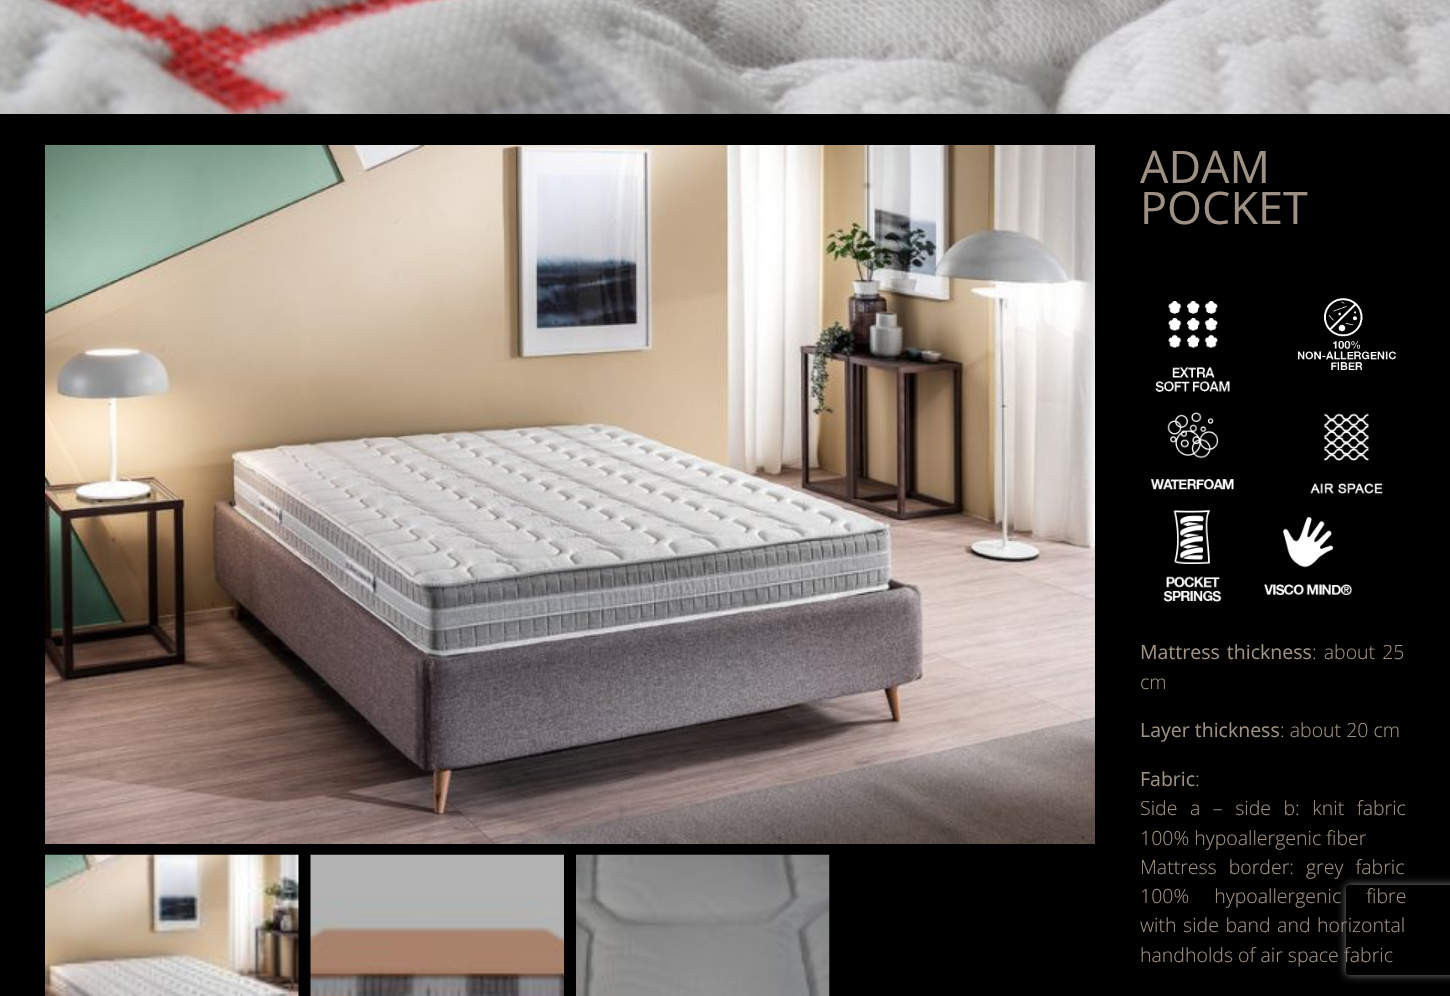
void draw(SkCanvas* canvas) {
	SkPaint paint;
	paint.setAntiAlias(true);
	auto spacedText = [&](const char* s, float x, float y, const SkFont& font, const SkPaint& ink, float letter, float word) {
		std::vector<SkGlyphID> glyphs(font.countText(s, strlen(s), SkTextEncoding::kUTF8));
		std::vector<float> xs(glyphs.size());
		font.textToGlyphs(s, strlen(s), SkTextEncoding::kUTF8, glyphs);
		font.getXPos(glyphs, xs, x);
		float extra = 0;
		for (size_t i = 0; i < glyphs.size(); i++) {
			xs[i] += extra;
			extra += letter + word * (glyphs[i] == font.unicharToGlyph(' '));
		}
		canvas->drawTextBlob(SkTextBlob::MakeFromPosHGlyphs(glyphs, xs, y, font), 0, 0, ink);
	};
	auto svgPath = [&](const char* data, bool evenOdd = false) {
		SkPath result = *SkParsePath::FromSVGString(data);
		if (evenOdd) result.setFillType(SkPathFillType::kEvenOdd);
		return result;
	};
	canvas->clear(0xff000000);
	canvas->drawImageRect(SkImages::DeferredFromEncodedData(SkData::MakeFromFileName("img1.png")), SkRect::MakeXYWH(0, 0, 1450, 114), SkSamplingOptions());
	canvas->drawImageRect(SkImages::DeferredFromEncodedData(SkData::MakeFromFileName("img2.png")), SkRect::MakeXYWH(45, 145, 1050, 699), SkSamplingOptions());
	canvas->drawImageRect(SkImages::DeferredFromEncodedData(SkData::MakeFromFileName("img3.png")), SkRect::MakeXYWH(45, 854, 254, 142), SkSamplingOptions());
	canvas->drawImageRect(SkImages::DeferredFromEncodedData(SkData::MakeFromFileName("img4.png")), SkRect::MakeXYWH(310, 854, 254, 142), SkSamplingOptions());
	canvas->drawImageRect(SkImages::DeferredFromEncodedData(SkData::MakeFromFileName("img5.png")), SkRect::MakeXYWH(576, 854, 254, 142), SkSamplingOptions());
	SkFont f1(fontMgr->matchFamilyStyle("Open Sans", SkFontStyle::Normal()), 45);
	f1.setSubpixel(true);
	paint.setColor(0xff9c9184);
	canvas->drawString("ADAM", 1140, 183, f1, paint);
	canvas->drawString("POCKET", 1140, 224, f1, paint);
	canvas->drawImageRect(SkImages::DeferredFromEncodedData(SkData::MakeFromFileName("img6.png")), SkRect::MakeXYWH(1155, 301, 75, 91), SkSamplingOptions());
	canvas->drawImageRect(SkImages::DeferredFromEncodedData(SkData::MakeFromFileName("img7.png")), SkRect::MakeXYWH(1297, 298, 100, 72), SkSamplingOptions());
	canvas->drawImageRect(SkImages::DeferredFromEncodedData(SkData::MakeFromFileName("img8.png")), SkRect::MakeXYWH(1151, 412, 83, 78), SkSamplingOptions());
	canvas->drawImageRect(SkImages::DeferredFromEncodedData(SkData::MakeFromFileName("img9.png")), SkRect::MakeXYWH(1310, 413, 73, 81), SkSamplingOptions());
	canvas->drawImageRect(SkImages::DeferredFromEncodedData(SkData::MakeFromFileName("img10.png")), SkRect::MakeXYWH(1163, 510, 59, 92), SkSamplingOptions());
	canvas->drawImageRect(SkImages::DeferredFromEncodedData(SkData::MakeFromFileName("img11.png")), SkRect::MakeXYWH(1264, 517, 89, 78), SkSamplingOptions());
	SkFont f2(fontMgr->matchFamilyStyle("Open Sans", SkFontStyle::Normal()), 19.5);
	f2.setSubpixel(true);
	spacedText("Mattress thickness", 1140, 659, f2, paint, 0, 2);
	SkFont f3(fontMgr->matchFamilyStyle("Open Sans", SkFontStyle(300, SkFontStyle::kNormal_Width, SkFontStyle::kUpright_Slant)), 19.5);
	f3.setSubpixel(true);
	spacedText(": about 25", 1312, 659, f3, paint, 0, 2);
	canvas->drawString("cm", 1140, 689, f3, paint);
	canvas->drawString("Layer thickness", 1140, 737, f2, paint);
	canvas->drawString(": about 20 cm", 1280, 737, f3, paint);
	canvas->drawString("Fabric", 1140, 786, f2, paint);
	canvas->drawString(":", 1195, 786, f3, paint);
	spacedText("Side a – side b: knit fabric", 1140, 815, f3, paint, 0, 7.5);
	canvas->drawString("100% hypoallergenic fiber", 1140, 845, f3, paint);
	spacedText("Mattress border: grey fabric", 1140, 874, f3, paint, 0, 7);
	spacedText("100% hypoallergenic fibre", 1140, 903, f3, paint, 0, 20);
	spacedText("with side band and horizontal", 1140, 932, f3, paint, 0, 1.5);
	canvas->drawString("handholds of air space fabric", 1140, 962, f3, paint);
	canvas->save();
	canvas->clipPath(svgPath("M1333 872H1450V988H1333ZM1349 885H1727C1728.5 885 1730 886.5 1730 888V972C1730 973.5 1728.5 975 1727 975H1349C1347.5 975 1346 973.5 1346 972V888C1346 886.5 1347.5 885 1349 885Z", true), true);
	paint.setColor(0xff808080);
	paint.setMaskFilter(SkMaskFilter::MakeBlur(kNormal_SkBlurStyle, 4));
	canvas->drawRoundRect(SkRect::MakeXYWH(1346, 885, 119, 90), 3, 3, paint);
	paint.setMaskFilter(nullptr);
	canvas->restore();
}
